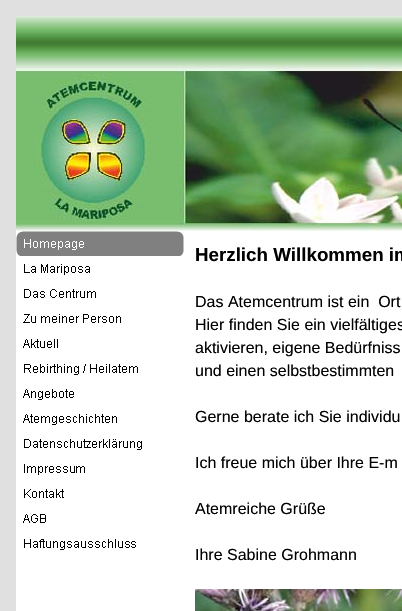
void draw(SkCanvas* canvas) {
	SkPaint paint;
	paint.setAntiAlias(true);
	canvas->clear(0xffe0e0e0);
	canvas->drawImageRect(SkImages::DeferredFromEncodedData(SkData::MakeFromFileName("img1.png")), SkRect::MakeXYWH(16, 16, 386, 215), SkSamplingOptions());
	paint.setColor(0xffffffff);
	canvas->drawRect(SkRect::MakeXYWH(16, 231, 386, 380), paint);
	canvas->drawImageRect(SkImages::DeferredFromEncodedData(SkData::MakeFromFileName("img2.png")), SkRect::MakeXYWH(16, 231, 168, 25), SkSamplingOptions());
	canvas->drawImageRect(SkImages::DeferredFromEncodedData(SkData::MakeFromFileName("img3.png")), SkRect::MakeXYWH(24, 264, 66, 11), SkSamplingOptions());
	canvas->drawImageRect(SkImages::DeferredFromEncodedData(SkData::MakeFromFileName("img4.png")), SkRect::MakeXYWH(24, 289, 72, 9), SkSamplingOptions());
	canvas->drawImageRect(SkImages::DeferredFromEncodedData(SkData::MakeFromFileName("img5.png")), SkRect::MakeXYWH(23, 314, 98, 9), SkSamplingOptions());
	canvas->drawImageRect(SkImages::DeferredFromEncodedData(SkData::MakeFromFileName("img6.png")), SkRect::MakeXYWH(23, 339, 35, 9), SkSamplingOptions());
	canvas->drawImageRect(SkImages::DeferredFromEncodedData(SkData::MakeFromFileName("img7.png")), SkRect::MakeXYWH(24, 364, 114, 11), SkSamplingOptions());
	canvas->drawImageRect(SkImages::DeferredFromEncodedData(SkData::MakeFromFileName("img8.png")), SkRect::MakeXYWH(23, 389, 51, 11), SkSamplingOptions());
	canvas->drawImageRect(SkImages::DeferredFromEncodedData(SkData::MakeFromFileName("img9.png")), SkRect::MakeXYWH(23, 414, 94, 11), SkSamplingOptions());
	canvas->drawImageRect(SkImages::DeferredFromEncodedData(SkData::MakeFromFileName("img10.png")), SkRect::MakeXYWH(24, 439, 118, 11), SkSamplingOptions());
	canvas->drawImageRect(SkImages::DeferredFromEncodedData(SkData::MakeFromFileName("img11.png")), SkRect::MakeXYWH(24, 464, 61, 11), SkSamplingOptions());
	canvas->drawImageRect(SkImages::DeferredFromEncodedData(SkData::MakeFromFileName("img12.png")), SkRect::MakeXYWH(24, 489, 40, 9), SkSamplingOptions());
	canvas->drawImageRect(SkImages::DeferredFromEncodedData(SkData::MakeFromFileName("img13.png")), SkRect::MakeXYWH(23, 514, 23, 9), SkSamplingOptions());
	canvas->drawImageRect(SkImages::DeferredFromEncodedData(SkData::MakeFromFileName("img14.png")), SkRect::MakeXYWH(24, 539, 112, 11), SkSamplingOptions());
	SkFont f1(fontMgr->matchFamilyStyle("Liberation Sans", SkFontStyle::Bold()), 18.75);
	f1.setSubpixel(true);
	paint.setColor(0xff000000);
	canvas->drawString("Herzlich Willkommen im", 195, 261, f1, paint);
	SkFont f2(fontMgr->matchFamilyStyle("Liberation Sans", SkFontStyle::Normal()), 16);
	f2.setSubpixel(true);
	canvas->drawString("Das Atemcentrum ist ein  Ort", 195, 307, f2, paint);
	canvas->drawString("Hier finden Sie ein vielfältiges", 195, 330, f2, paint);
	canvas->drawString("aktivieren, eigene Bedürfniss", 195, 353, f2, paint);
	canvas->drawString("und einen selbstbestimmten", 195, 376, f2, paint);
	canvas->drawString("Gerne berate ich Sie individu", 195, 422, f2, paint);
	canvas->drawString("Ich freue mich über Ihre E-m", 195, 468, f2, paint);
	canvas->drawString("Atemreiche Grüße", 195, 514, f2, paint);
	canvas->drawString("Ihre Sabine Grohmann", 195, 560, f2, paint);
	canvas->drawImageRect(SkImages::DeferredFromEncodedData(SkData::MakeFromFileName("img15.png")), SkRect::MakeXYWH(195, 589, 207, 22), SkSamplingOptions());
}
